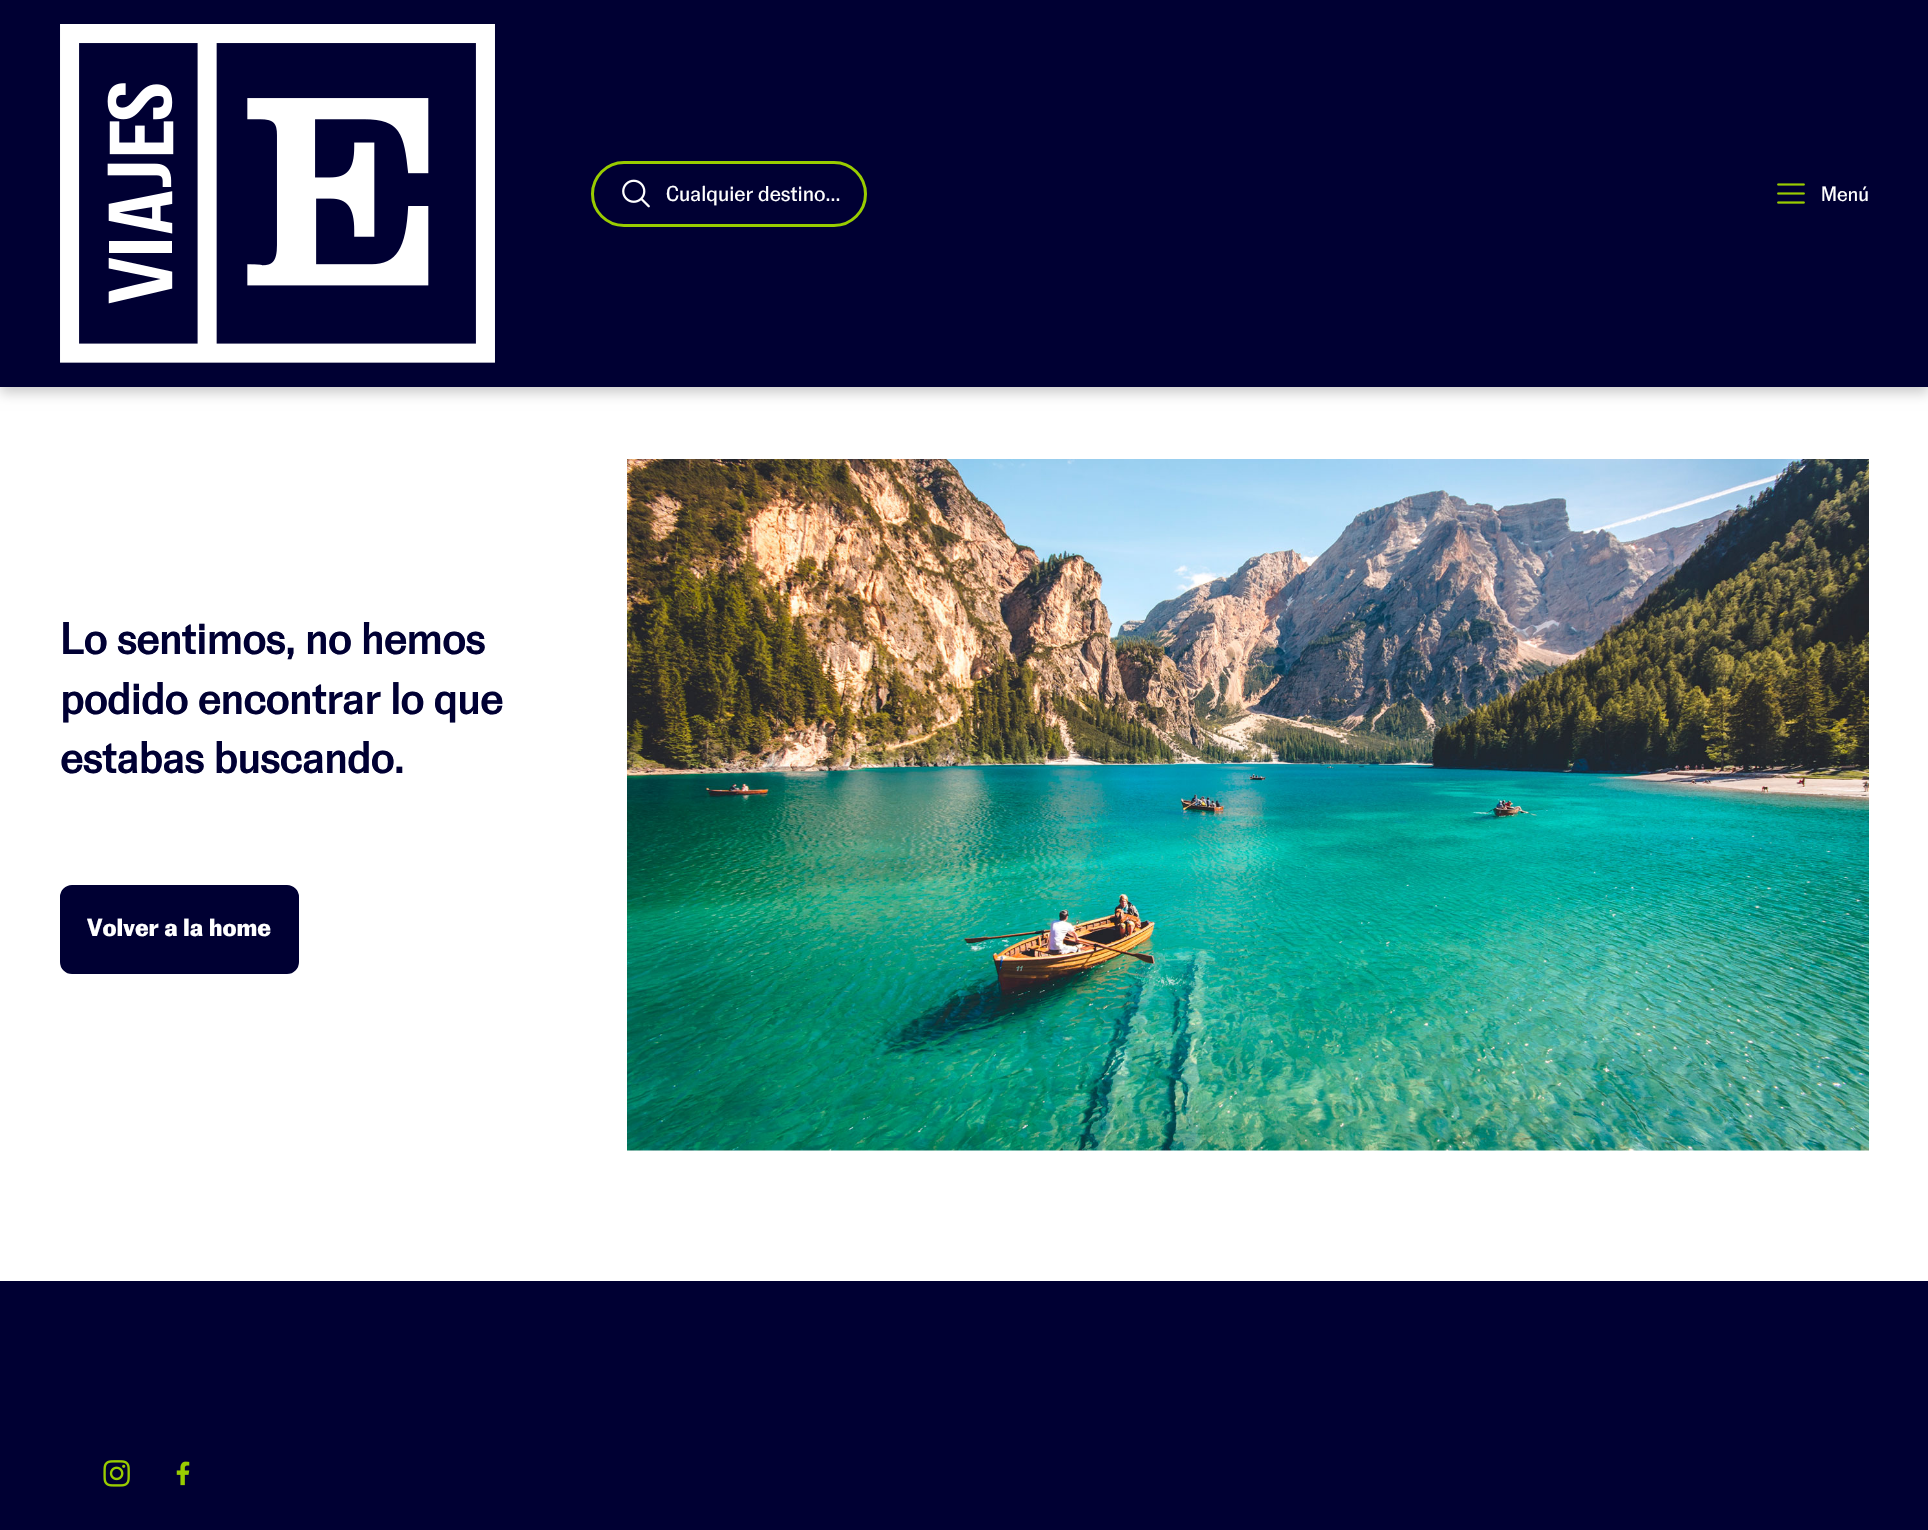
void draw(SkCanvas* canvas) {
	SkPaint paint;
	paint.setAntiAlias(true);
	canvas->clear(0xffffffff);
	paint.setColor(0x33000000);
	paint.setMaskFilter(SkMaskFilter::MakeBlur(kNormal_SkBlurStyle, 6));
	canvas->drawRect(SkRect::MakeXYWH(0, 6, 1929, 387), paint);
	paint.setMaskFilter(nullptr);
	paint.setColor(0xff000033);
	canvas->drawRect(SkRect::MakeXYWH(0, 0, 1928, 387), paint);
	canvas->drawImageRect(SkImages::DeferredFromEncodedData(SkData::MakeFromFileName("img1.png")), SkRect::MakeXYWH(60, 24, 435, 339), SkSamplingOptions());
	paint.setStroke(true);
	paint.setStrokeWidth(3);
	paint.setColor(0xff99cc00);
	canvas->drawRoundRect(SkRect::MakeXYWH(592.5, 162.5, 273, 63), 31.5, 31.5, paint);
	canvas->drawImageRect(SkImages::DeferredFromEncodedData(SkData::MakeFromFileName("img2.png")), SkRect::MakeXYWH(622, 179, 28, 29), SkSamplingOptions());
	SkFont f1(fontMgr->matchFamilyStyle("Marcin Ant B", SkFontStyle::Normal()), 21);
	f1.setSubpixel(true);
	paint.setStroke(false);
	paint.setColor(0xffffffff);
	canvas->drawString("Cualquier destino...", 666, 201, f1, paint);
	canvas->drawImageRect(SkImages::DeferredFromEncodedData(SkData::MakeFromFileName("img3.png")), SkRect::MakeXYWH(1777, 183, 28, 21), SkSamplingOptions());
	SkFont f2(fontMgr->matchFamilyStyle("Marcin Ant B", SkFontStyle::Normal()), 20);
	f2.setSubpixel(true);
	canvas->drawString("Menú", 1821, 201, f2, paint);
	SkFont f3(fontMgr->matchFamilyStyle("Marcin Ant B", SkFontStyle::Bold()), 42.6);
	f3.setSubpixel(true);
	paint.setColor(0xff000033);
	canvas->drawString("Lo sentimos, no hemos", 60, 654, f3, paint);
	canvas->drawString("podido encontrar lo que", 60, 714, f3, paint);
	canvas->drawString("estabas buscando.", 60, 773, f3, paint);
	canvas->drawRoundRect(SkRect::MakeXYWH(61.5, 886.5, 236, 86), 10.5, 10.5, paint);
	paint.setStroke(true);
	canvas->drawRoundRect(SkRect::MakeXYWH(61.5, 886.5, 236, 86), 10.5, 10.5, paint);
	SkFont f4(fontMgr->matchFamilyStyle("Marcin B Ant", SkFontStyle::Bold()), 24);
	f4.setSubpixel(true);
	paint.setStroke(false);
	paint.setColor(0xffffffff);
	canvas->drawString("Volver a la home", 87, 936, f4, paint);
	canvas->drawImageRect(SkImages::DeferredFromEncodedData(SkData::MakeFromFileName("img4.png")), SkRect::MakeXYWH(627, 459, 1242, 692), SkSamplingOptions());
	paint.setColor(0xff000033);
	canvas->drawRect(SkRect::MakeXYWH(0, 1281, 1928, 249), paint);
	canvas->drawImageRect(SkImages::DeferredFromEncodedData(SkData::MakeFromFileName("img5.png")), SkRect::MakeXYWH(103, 1460, 27, 27), SkSamplingOptions());
	canvas->drawImageRect(SkImages::DeferredFromEncodedData(SkData::MakeFromFileName("img6.png")), SkRect::MakeXYWH(176, 1461, 14, 25), SkSamplingOptions());
}
